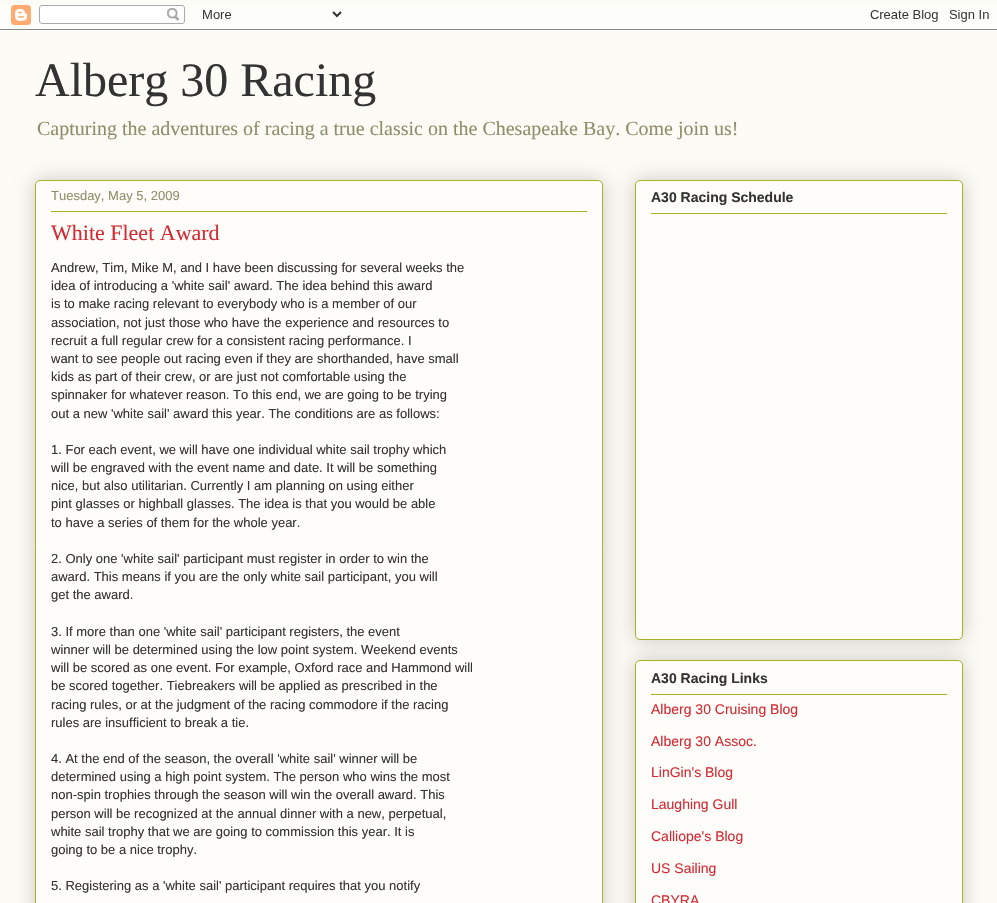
void draw(SkCanvas* canvas) {
	SkPaint paint;
	paint.setAntiAlias(true);
	canvas->clear(0xfffcfbf5);
	canvas->drawImageRect(SkImages::DeferredFromEncodedData(SkData::MakeFromFileName("img1.png")), SkRect::MakeXYWH(0, 5, 997, 25), SkSamplingOptions());
	SkFont f1(fontMgr->matchFamilyStyle("Liberation Serif", SkFontStyle::Normal()), 48);
	f1.setSubpixel(true);
	paint.setColor(0xff333333);
	canvas->drawString("Alberg 30 Racing", 35, 96, f1, paint);
	SkFont f2(fontMgr->matchFamilyStyle("Liberation Serif", SkFontStyle::Normal()), 20);
	f2.setSubpixel(true);
	paint.setColor(0xff908d6a);
	canvas->drawString("Capturing the adventures of racing a true classic on the Chesapeake Bay. Come join us!", 37, 135, f2, paint);
	paint.setColor(0x33000000);
	paint.setMaskFilter(SkMaskFilter::MakeBlur(kNormal_SkBlurStyle, 10));
	canvas->drawRoundRect(SkRect::MakeXYWH(35, 180, 568, 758), 5, 5, paint);
	paint.setMaskFilter(nullptr);
	paint.setColor(0xfffefdfa);
	canvas->drawRoundRect(SkRect::MakeXYWH(35.5, 180.5, 567, 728), 4.5, 4.5, paint);
	paint.setStroke(true);
	paint.setStrokeWidth(1);
	paint.setColor(0xffaab123);
	canvas->drawRoundRect(SkRect::MakeXYWH(35.5, 180.5, 567, 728), 4.5, 4.5, paint);
	SkFont f3(fontMgr->matchFamilyStyle("Liberation Sans", SkFontStyle::Normal()), 13);
	f3.setSubpixel(true);
	paint.setStroke(false);
	paint.setColor(0xff908d6a);
	canvas->drawString("Tuesday, May 5, 2009", 51, 200, f3, paint);
	paint.setColor(0xffaab123);
	canvas->drawRect(SkRect::MakeXYWH(51, 211, 536, 1), paint);
	SkFont f4(fontMgr->matchFamilyStyle("Liberation Serif", SkFontStyle::Normal()), 22);
	f4.setSubpixel(true);
	paint.setColor(0xffd52a33);
	canvas->drawString("White Fleet Award", 51, 240, f4, paint);
	paint.setColor(0xff333333);
	canvas->drawString("Andrew, Tim, Mike M, and I have been discussing for several weeks the", 51, 272, f3, paint);
	canvas->drawString("idea of introducing a 'white sail' award. The idea behind this award", 51, 290, f3, paint);
	canvas->drawString("is to make racing relevant to everybody who is a member of our", 51, 308, f3, paint);
	canvas->drawString("association, not just those who have the experience and resources to", 51, 327, f3, paint);
	canvas->drawString("recruit a full regular crew for a consistent racing performance. I", 51, 345, f3, paint);
	canvas->drawString("want to see people out racing even if they are shorthanded, have small", 51, 363, f3, paint);
	canvas->drawString("kids as part of their crew, or are just not comfortable using the", 51, 381, f3, paint);
	canvas->drawString("spinnaker for whatever reason. To this end, we are going to be trying", 51, 399, f3, paint);
	canvas->drawString("out a new 'white sail' award this year. The conditions are as follows:", 51, 418, f3, paint);
	canvas->drawString("1. For each event, we will have one individual white sail trophy which", 51, 454, f3, paint);
	canvas->drawString("will be engraved with the event name and date. It will be something", 51, 472, f3, paint);
	canvas->drawString("nice, but also utilitarian. Currently I am planning on using either", 51, 490, f3, paint);
	canvas->drawString("pint glasses or highball glasses. The idea is that you would be able", 51, 508, f3, paint);
	canvas->drawString("to have a series of them for the whole year.", 51, 527, f3, paint);
	canvas->drawString("2. Only one 'white sail' participant must register in order to win the", 51, 563, f3, paint);
	canvas->drawString("award. This means if you are the only white sail participant, you will", 51, 581, f3, paint);
	canvas->drawString("get the award.", 51, 599, f3, paint);
	canvas->drawString("3. If more than one 'white sail' participant registers, the event", 51, 636, f3, paint);
	canvas->drawString("winner will be determined using the low point system. Weekend events", 51, 654, f3, paint);
	canvas->drawString("will be scored as one event. For example, Oxford race and Hammond will", 51, 672, f3, paint);
	canvas->drawString("be scored together. Tiebreakers will be applied as prescribed in the", 51, 690, f3, paint);
	canvas->drawString("racing rules, or at the judgment of the racing commodore if the racing", 51, 709, f3, paint);
	canvas->drawString("rules are insufficient to break a tie.", 51, 727, f3, paint);
	canvas->drawString("4. At the end of the season, the overall 'white sail' winner will be", 51, 763, f3, paint);
	canvas->drawString("determined using a high point system. The person who wins the most", 51, 781, f3, paint);
	canvas->drawString("non-spin trophies through the season will win the overall award. This", 51, 799, f3, paint);
	canvas->drawString("person will be recognized at the annual dinner with a new, perpetual,", 51, 818, f3, paint);
	canvas->drawString("white sail trophy that we are going to commission this year. It is", 51, 836, f3, paint);
	canvas->drawString("going to be a nice trophy.", 51, 854, f3, paint);
	canvas->drawString("5. Registering as a 'white sail' participant requires that you notify", 51, 890, f3, paint);
	paint.setColor(0x33000000);
	paint.setMaskFilter(SkMaskFilter::MakeBlur(kNormal_SkBlurStyle, 10));
	canvas->drawRoundRect(SkRect::MakeXYWH(635, 180, 328, 460), 5, 5, paint);
	paint.setMaskFilter(nullptr);
	paint.setColor(0xfffefdfa);
	canvas->drawRoundRect(SkRect::MakeXYWH(635.5, 180.5, 327, 459), 4.5, 4.5, paint);
	paint.setStroke(true);
	paint.setColor(0xffaab123);
	canvas->drawRoundRect(SkRect::MakeXYWH(635.5, 180.5, 327, 459), 4.5, 4.5, paint);
	SkFont f5(fontMgr->matchFamilyStyle("Liberation Sans", SkFontStyle::Bold()), 14);
	f5.setSubpixel(true);
	paint.setStroke(false);
	paint.setColor(0xff333333);
	canvas->drawString("A30 Racing Schedule", 651, 202, f5, paint);
	paint.setColor(0xffaab123);
	canvas->drawRect(SkRect::MakeXYWH(651, 213, 296, 1), paint);
	paint.setColor(0x33000000);
	paint.setMaskFilter(SkMaskFilter::MakeBlur(kNormal_SkBlurStyle, 10));
	canvas->drawRoundRect(SkRect::MakeXYWH(635, 660, 328, 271), 5, 5, paint);
	paint.setMaskFilter(nullptr);
	paint.setColor(0xfffefdfa);
	canvas->drawRoundRect(SkRect::MakeXYWH(635.5, 660.5, 327, 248), 4.5, 4.5, paint);
	paint.setStroke(true);
	paint.setColor(0xffaab123);
	canvas->drawRoundRect(SkRect::MakeXYWH(635.5, 660.5, 327, 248), 4.5, 4.5, paint);
	paint.setStroke(false);
	paint.setColor(0xff333333);
	canvas->drawString("A30 Racing Links", 651, 683, f5, paint);
	paint.setColor(0xffaab123);
	canvas->drawRect(SkRect::MakeXYWH(651, 694, 296, 1), paint);
	SkFont f6(fontMgr->matchFamilyStyle("Liberation Sans", SkFontStyle::Normal()), 14);
	f6.setSubpixel(true);
	paint.setColor(0xffd52a33);
	canvas->drawString("Alberg 30 Cruising Blog", 651, 714, f6, paint);
	canvas->drawString("Alberg 30 Assoc.", 651, 746, f6, paint);
	canvas->drawString("LinGin's Blog", 651, 777, f6, paint);
	canvas->drawString("Laughing Gull", 651, 809, f6, paint);
	canvas->drawString("Calliope's Blog", 651, 841, f6, paint);
	canvas->drawString("US Sailing", 651, 873, f6, paint);
	canvas->drawString("CBYRA", 651, 905, f6, paint);
}
